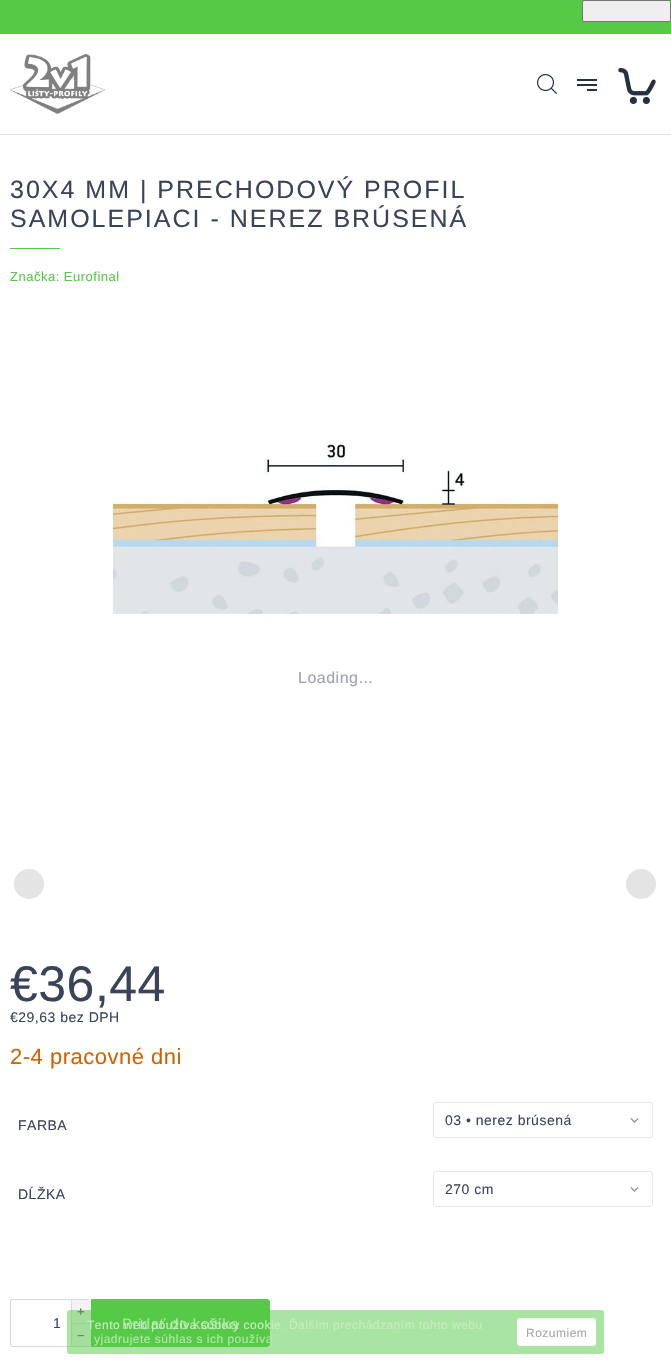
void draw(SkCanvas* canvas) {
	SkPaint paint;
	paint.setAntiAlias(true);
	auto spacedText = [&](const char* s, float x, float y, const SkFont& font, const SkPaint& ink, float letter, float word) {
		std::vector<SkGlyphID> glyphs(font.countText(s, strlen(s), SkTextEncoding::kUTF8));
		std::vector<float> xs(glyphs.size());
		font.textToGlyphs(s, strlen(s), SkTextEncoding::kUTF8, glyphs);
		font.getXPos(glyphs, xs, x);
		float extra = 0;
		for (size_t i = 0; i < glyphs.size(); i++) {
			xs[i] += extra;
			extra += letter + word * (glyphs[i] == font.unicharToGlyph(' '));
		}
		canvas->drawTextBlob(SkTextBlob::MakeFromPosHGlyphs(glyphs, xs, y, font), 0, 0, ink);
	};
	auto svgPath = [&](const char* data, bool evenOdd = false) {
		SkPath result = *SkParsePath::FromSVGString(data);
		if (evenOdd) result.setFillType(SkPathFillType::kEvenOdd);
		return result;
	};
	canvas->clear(0xffffffff);
	paint.setColor(0xff56c946);
	canvas->drawRect(SkRect::MakeXYWH(0, 0, 671, 34), paint);
	paint.setColor(0xffefefef);
	canvas->drawRoundRect(SkRect::MakeXYWH(582.5, 0.5, 88, 21), 1.5, 1.5, paint);
	paint.setStroke(true);
	paint.setStrokeWidth(1);
	paint.setColor(0xff767676);
	canvas->drawRoundRect(SkRect::MakeXYWH(582.5, 0.5, 88, 21), 1.5, 1.5, paint);
	paint.setStroke(false);
	paint.setColor(0xff272f43);
	canvas->drawRect(SkRect::MakeXYWH(577, 79, 20, 2), paint);
	canvas->drawRect(SkRect::MakeXYWH(577, 84, 20, 2), paint);
	canvas->drawRect(SkRect::MakeXYWH(587, 89, 10, 2), paint);
	canvas->drawImageRect(SkImages::DeferredFromEncodedData(SkData::MakeFromFileName("img1.png")), SkRect::MakeXYWH(537, 74, 20, 20), SkSamplingOptions());
	paint.setColor(0xffe4e4e8);
	canvas->drawRect(SkRect::MakeXYWH(0, 134, 671, 1), paint);
	canvas->drawImageRect(SkImages::DeferredFromEncodedData(SkData::MakeFromFileName("img2.png")), SkRect::MakeXYWH(10, 54, 95, 60), SkSamplingOptions());
	canvas->drawImageRect(SkImages::DeferredFromEncodedData(SkData::MakeFromFileName("img3.png")), SkRect::MakeXYWH(618, 68, 38, 36), SkSamplingOptions());
	SkFont f1(fontMgr->matchFamilyStyle("Liberation Sans", SkFontStyle::Normal()), 25);
	f1.setSubpixel(true);
	paint.setColor(0xff3a435a);
	spacedText("30X4 MM | PRECHODOVÝ PROFIL", 10, 198, f1, paint, 2, 0);
	spacedText("SAMOLEPIACI - NEREZ BRÚSENÁ", 10, 227, f1, paint, 2, 0);
	paint.setColor(0xff56c946);
	canvas->drawRect(SkRect::MakeXYWH(10, 248, 50, 1), paint);
	SkFont f2(fontMgr->matchFamilyStyle("Liberation Sans", SkFontStyle::Normal()), 13);
	f2.setSubpixel(true);
	spacedText("Značka: Eurofinal", 10, 281, f2, paint, 0.5, 0);
	canvas->drawImageRect(SkImages::DeferredFromEncodedData(SkData::MakeFromFileName("img4.png")), SkRect::MakeXYWH(111, 440, 449, 176), SkSamplingOptions());
	SkFont f3(fontMgr->matchFamilyStyle("Liberation Sans", SkFontStyle::Normal()), 16);
	f3.setSubpixel(true);
	paint.setColor(0xff9da1ad);
	spacedText("Loading...", 298, 683, f3, paint, 0.5, 0);
	paint.setColor(0xffe4e4e4);
	canvas->drawCircle(29, 884, 15, paint);
	canvas->drawCircle(641, 884, 15, paint);
	SkFont f4(fontMgr->matchFamilyStyle("Liberation Sans", SkFontStyle::Normal()), 50);
	f4.setSubpixel(true);
	paint.setColor(0xff3a435a);
	spacedText("€36,44", 10, 1001, f4, paint, 0.5, 0);
	SkFont f5(fontMgr->matchFamilyStyle("Liberation Sans", SkFontStyle::Normal()), 14);
	f5.setSubpixel(true);
	spacedText("€29,63 bez DPH", 10, 1022, f5, paint, 0.5, 0);
	SkFont f6(fontMgr->matchFamilyStyle("Liberation Sans", SkFontStyle::Normal()), 22);
	f6.setSubpixel(true);
	paint.setColor(0xffce6301);
	spacedText("2-4 pracovné dni", 10, 1064, f6, paint, 0.5, 0);
	paint.setColor(0xff3a435a);
	spacedText("FARBA", 18, 1130, f5, paint, 0.5, 0);
	canvas->drawImageRect(SkImages::DeferredFromEncodedData(SkData::MakeFromFileName("img5.png")), SkRect::MakeXYWH(630, 1118, 9, 5), SkSamplingOptions());
	paint.setStroke(true);
	paint.setColor(0xffe6e6e6);
	canvas->drawRoundRect(SkRect::MakeXYWH(433.5, 1102.5, 219, 35), 2.5, 2.5, paint);
	paint.setStroke(false);
	paint.setColor(0xff3a435a);
	spacedText("03 • nerez brúsená", 445, 1125, f5, paint, 0.5, 0);
	spacedText("DĹŽKA", 18, 1199, f5, paint, 0.5, 0);
	canvas->drawImageRect(SkImages::DeferredFromEncodedData(SkData::MakeFromFileName("img5.png")), SkRect::MakeXYWH(630, 1187, 9, 5), SkSamplingOptions());
	paint.setStroke(true);
	paint.setColor(0xffe6e6e6);
	canvas->drawRoundRect(SkRect::MakeXYWH(433.5, 1171.5, 219, 35), 2.5, 2.5, paint);
	paint.setStroke(false);
	paint.setColor(0xff3a435a);
	spacedText("270 cm", 445, 1194, f5, paint, 0.5, 0);
	paint.setColor(0xffd6d8dd);
	canvas->drawPath(svgPath("M13 1299H88C90 1299 91 1300 91 1302V1344C91 1346 90 1347 88 1347H13C11 1347 10 1346 10 1344V1302C10 1300 11 1299 13 1299ZM13 1300H88C90 1300 91 1301 91 1302V1344C91 1345 90 1346 88 1346H13C12 1346 11 1345 11 1344V1302C11 1301 12 1300 13 1300Z", true), paint);
	paint.setColor(0xfff3f3f3);
	canvas->drawRect(SkRect::MakeXYWH(72, 1300, 19, 23), paint);
	paint.setColor(0xffdadada);
	canvas->drawRect(SkRect::MakeXYWH(71, 1300, 1, 23), paint);
	paint.setColor(0xff3a435a);
	spacedText("+", 77, 1316, f2, paint, 0.5, 0);
	spacedText("1", 53, 1328, f5, paint, 0.5, 0);
	paint.setColor(0xfff3f3f3);
	canvas->drawRect(SkRect::MakeXYWH(72, 1324, 19, 22), paint);
	paint.setColor(0xffdadada);
	canvas->drawRect(SkRect::MakeXYWH(71, 1323, 20, 1), paint);
	canvas->drawRect(SkRect::MakeXYWH(71, 1323, 1, 23), paint);
	paint.setColor(0xff3a435a);
	spacedText("−", 77, 1340, f2, paint, 0.5, 0);
	paint.setColor(0xff56c946);
	canvas->drawPath(svgPath("M91.5 1299.5H267C268.5 1299.5 269.5 1300.5 269.5 1302V1344C269.5 1345.5 268.5 1346.5 267 1346.5H91.5Z"), paint);
	paint.setStroke(true);
	canvas->drawPath(svgPath("M91.5 1299.5H267C268.5 1299.5 269.5 1300.5 269.5 1302V1344C269.5 1345.5 268.5 1346.5 267 1346.5H91.5Z"), paint);
	SkFont f7(fontMgr->matchFamilyStyle("Liberation Sans", SkFontStyle::Normal()), 15);
	f7.setSubpixel(true);
	paint.setStroke(false);
	paint.setColor(0xffffffff);
	spacedText("Pridať do košíka", 122, 1329, f7, paint, 0.5, 0);
	paint.setColor(0x8056c946);
	canvas->drawRoundRect(SkRect::MakeXYWH(67, 1310, 537, 44), 3, 3, paint);
	SkFont f8(fontMgr->matchFamilyStyle("Liberation Sans", SkFontStyle::Normal()), 12);
	f8.setSubpixel(true);
	paint.setColor(0xffc5edc0);
	spacedText("Tento web používa súbory cookie. Ďalším prechádzaním tohto webu", 87, 1329, f8, paint, 0.5, 0);
	paint.setColor(0xffffffff);
	canvas->drawRoundRect(SkRect::MakeXYWH(517.5, 1318.5, 78, 27), 2.5, 2.5, paint);
	paint.setStroke(true);
	canvas->drawRoundRect(SkRect::MakeXYWH(517.5, 1318.5, 78, 27), 2.5, 2.5, paint);
	paint.setStroke(false);
	paint.setColor(0xffa6a6a6);
	spacedText("Rozumiem", 526, 1337, f8, paint, 0.5, 0);
	paint.setColor(0xffb0e6a9);
	spacedText("yjadrujete súhlas s ich používa", 94, 1343, f8, paint, 0.5, 0);
}
